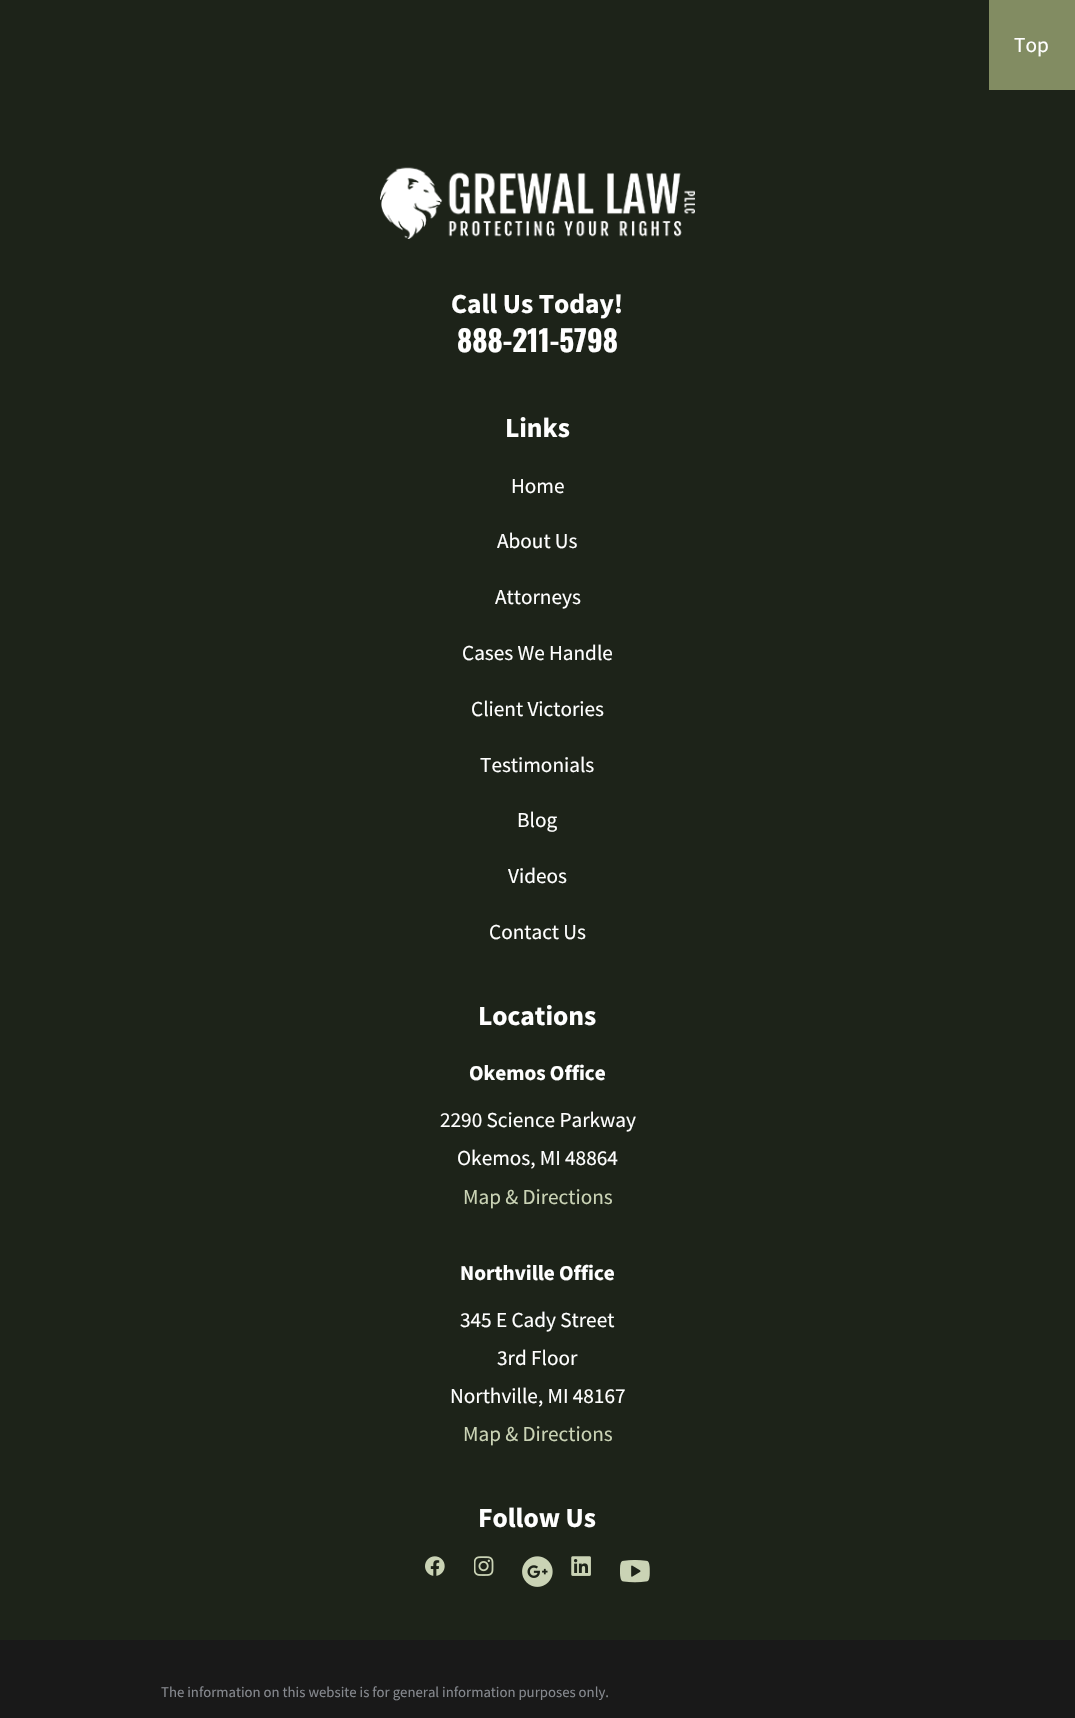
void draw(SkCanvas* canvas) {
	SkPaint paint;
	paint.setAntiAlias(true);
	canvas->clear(0xff1d2319);
	paint.setColor(0xff828c62);
	canvas->drawRect(SkRect::MakeXYWH(989, 0, 86, 90), paint);
	SkFont f1(fontMgr->matchFamilyStyle("Source Sans Pro", SkFontStyle::Normal()), 21.25);
	f1.setSubpixel(true);
	paint.setColor(0xffffffff);
	canvas->drawString("Top", 1014, 52, f1, paint);
	canvas->drawImageRect(SkImages::DeferredFromEncodedData(SkData::MakeFromFileName("img1.png")), SkRect::MakeXYWH(380, 167, 315, 72), SkSamplingOptions());
	SkFont f2(fontMgr->matchFamilyStyle("Source Sans Pro", SkFontStyle::Bold()), 27.5);
	f2.setSubpixel(true);
	canvas->drawString("Call Us Today!", 451, 313, f2, paint);
	SkFont f3(fontMgr->matchFamilyStyle("Oswald", SkFontStyle::Bold()), 29.25);
	f3.setSubpixel(true);
	canvas->drawString("888-211-5798", 457, 352, f3, paint);
	canvas->drawString("Links", 505, 437, f2, paint);
	canvas->drawString("Home", 511, 493, f1, paint);
	canvas->drawString("About Us", 497, 548, f1, paint);
	canvas->drawString("Attorneys", 495, 604, f1, paint);
	canvas->drawString("Cases We Handle", 462, 660, f1, paint);
	canvas->drawString("Client Victories", 471, 716, f1, paint);
	canvas->drawString("Testimonials", 480, 772, f1, paint);
	canvas->drawString("Blog", 517, 827, f1, paint);
	canvas->drawString("Videos", 508, 883, f1, paint);
	canvas->drawString("Contact Us", 489, 939, f1, paint);
	canvas->drawString("Locations", 478, 1025, f2, paint);
	SkFont f4(fontMgr->matchFamilyStyle("Source Sans Pro", SkFontStyle::Bold()), 21.25);
	f4.setSubpixel(true);
	canvas->drawString("Okemos Office", 469, 1080, f4, paint);
	canvas->drawString("2290 Science Parkway", 440, 1127, f1, paint);
	canvas->drawString("Okemos, MI 48864", 457, 1165, f1, paint);
	paint.setColor(0xffcad3b5);
	canvas->drawString("Map & Directions", 463, 1204, f1, paint);
	paint.setColor(0xffffffff);
	canvas->drawString("Northville Office", 460, 1280, f4, paint);
	canvas->drawString("345 E Cady Street", 460, 1327, f1, paint);
	canvas->drawString("3rd Floor", 497, 1365, f1, paint);
	canvas->drawString("Northville, MI 48167", 450, 1403, f1, paint);
	paint.setColor(0xffcad3b5);
	canvas->drawString("Map & Directions", 463, 1441, f1, paint);
	paint.setColor(0xffffffff);
	canvas->drawString("Follow Us", 478, 1527, f2, paint);
	canvas->drawImageRect(SkImages::DeferredFromEncodedData(SkData::MakeFromFileName("img2.png")), SkRect::MakeXYWH(425, 1556, 20, 20), SkSamplingOptions());
	canvas->drawImageRect(SkImages::DeferredFromEncodedData(SkData::MakeFromFileName("img3.png")), SkRect::MakeXYWH(474, 1556, 20, 20), SkSamplingOptions());
	canvas->drawImageRect(SkImages::DeferredFromEncodedData(SkData::MakeFromFileName("img4.png")), SkRect::MakeXYWH(522, 1556, 31, 31), SkSamplingOptions());
	canvas->drawImageRect(SkImages::DeferredFromEncodedData(SkData::MakeFromFileName("img5.png")), SkRect::MakeXYWH(571, 1556, 20, 20), SkSamplingOptions());
	canvas->drawImageRect(SkImages::DeferredFromEncodedData(SkData::MakeFromFileName("img6.png")), SkRect::MakeXYWH(620, 1560, 30, 23), SkSamplingOptions());
	paint.setColor(0xff191919);
	canvas->drawRect(SkRect::MakeXYWH(0, 1640, 1075, 78), paint);
	SkFont f5(fontMgr->matchFamilyStyle("Source Sans Pro", SkFontStyle::Normal()), 14.75);
	f5.setSubpixel(true);
	paint.setColor(0xff86898f);
	canvas->drawString("The information on this website is for general information purposes only.", 161, 1697, f5, paint);
}
